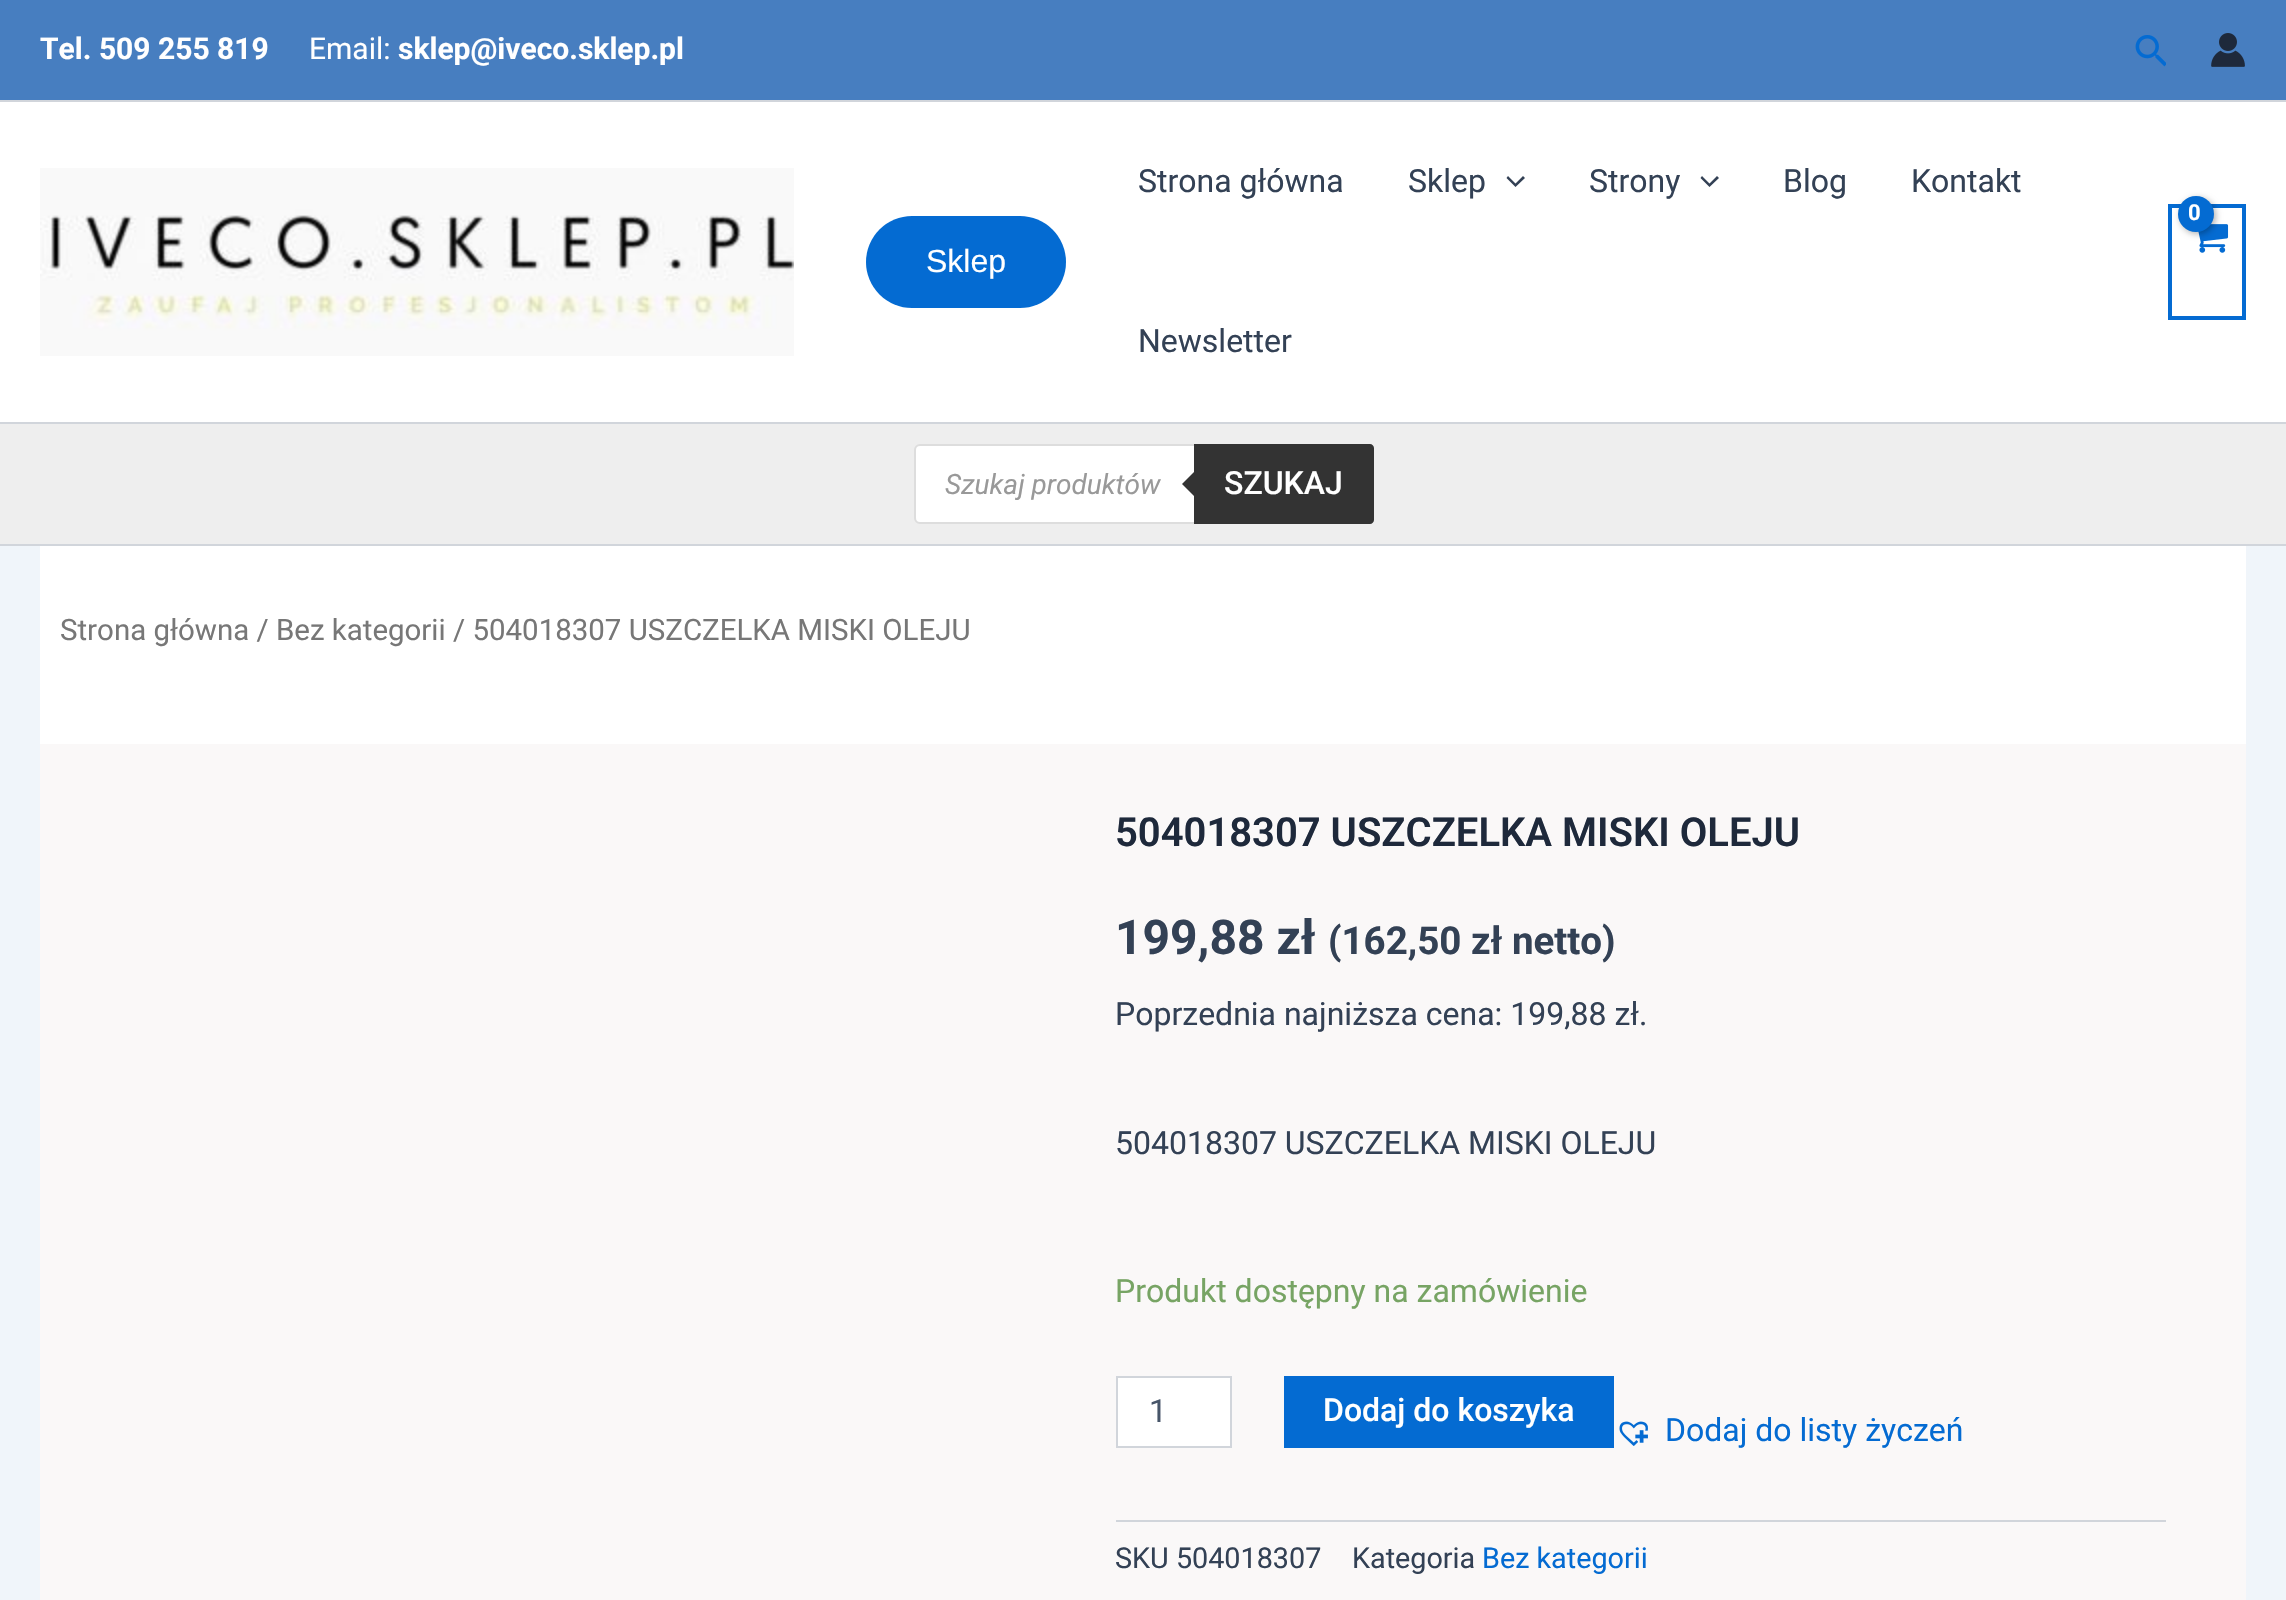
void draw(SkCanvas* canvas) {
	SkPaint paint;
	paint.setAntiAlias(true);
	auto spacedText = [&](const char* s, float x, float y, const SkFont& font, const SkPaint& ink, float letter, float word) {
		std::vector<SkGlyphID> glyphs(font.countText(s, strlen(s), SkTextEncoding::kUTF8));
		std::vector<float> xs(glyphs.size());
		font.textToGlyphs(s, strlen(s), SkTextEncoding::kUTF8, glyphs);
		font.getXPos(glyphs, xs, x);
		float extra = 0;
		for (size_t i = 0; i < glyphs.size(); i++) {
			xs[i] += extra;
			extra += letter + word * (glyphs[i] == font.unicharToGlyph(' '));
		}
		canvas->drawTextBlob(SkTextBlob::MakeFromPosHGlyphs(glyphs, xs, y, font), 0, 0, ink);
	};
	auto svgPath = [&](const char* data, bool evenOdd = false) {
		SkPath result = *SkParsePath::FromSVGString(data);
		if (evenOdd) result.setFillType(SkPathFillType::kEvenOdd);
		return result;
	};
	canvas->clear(0xfff0f5fa);
	paint.setColor(0xff477ec0);
	canvas->drawRect(SkRect::MakeXYWH(0, 0, 2286, 100), paint);
	paint.setColor(0xffd1d5db);
	canvas->drawRect(SkRect::MakeXYWH(0, 100, 2286, 2), paint);
	SkFont f1(fontMgr->matchFamilyStyle("Roboto", SkFontStyle::Bold()), 30);
	f1.setSubpixel(true);
	paint.setColor(0xffffffff);
	canvas->drawString("Tel. 509 255 819", 40, 59, f1, paint);
	SkFont f2(fontMgr->matchFamilyStyle("Roboto", SkFontStyle::Normal()), 30);
	f2.setSubpixel(true);
	canvas->drawString("Email:", 309, 59, f2, paint);
	canvas->drawString("sklep@iveco.sklep.pl", 398, 59, f1, paint);
	canvas->drawImageRect(SkImages::DeferredFromEncodedData(SkData::MakeFromFileName("img1.png")), SkRect::MakeXYWH(2135, 35, 31, 32), SkSamplingOptions());
	canvas->drawImageRect(SkImages::DeferredFromEncodedData(SkData::MakeFromFileName("img2.png")), SkRect::MakeXYWH(2211, 33, 34, 34), SkSamplingOptions());
	canvas->drawRect(SkRect::MakeXYWH(0, 102, 2286, 320), paint);
	paint.setColor(0xffd1d5db);
	canvas->drawRect(SkRect::MakeXYWH(0, 422, 2286, 2), paint);
	canvas->drawImageRect(SkImages::DeferredFromEncodedData(SkData::MakeFromFileName("img3.png")), SkRect::MakeXYWH(40, 168, 754, 188), SkSamplingOptions());
	paint.setColor(0xff046bd2);
	canvas->drawRoundRect(SkRect::MakeXYWH(866, 216, 200, 92), 46, 46, paint);
	SkFont f3(fontMgr->matchFamilyStyle("Liberation Sans", SkFontStyle::Normal()), 32);
	f3.setSubpixel(true);
	paint.setColor(0xffffffff);
	canvas->drawString("Sklep", 926, 272, f3, paint);
	SkFont f4(fontMgr->matchFamilyStyle("Roboto", SkFontStyle::Normal()), 32);
	f4.setSubpixel(true);
	paint.setColor(0xff334155);
	canvas->drawString("Strona główna", 1138, 192, f4, paint);
	canvas->drawString("Sklep", 1408, 192, f4, paint);
	canvas->drawPath(svgPath("M1506.5 178L1515.5 187L1525 178L1523 176L1515.5 183.5L1508 176Z"), paint);
	canvas->drawString("Strony", 1589, 192, f4, paint);
	canvas->drawPath(svgPath("M1700.5 178L1709.5 187L1719 178L1717 176L1709.5 183.5L1702 176Z"), paint);
	canvas->drawString("Blog", 1783, 192, f4, paint);
	canvas->drawString("Kontakt", 1911, 192, f4, paint);
	canvas->drawString("Newsletter", 1138, 352, f4, paint);
	paint.setStroke(true);
	paint.setStrokeWidth(4);
	paint.setColor(0xff046bd2);
	canvas->drawRect(SkRect::MakeXYWH(2170, 206, 74, 112), paint);
	canvas->drawImageRect(SkImages::DeferredFromEncodedData(SkData::MakeFromFileName("img4.png")), SkRect::MakeXYWH(2198, 224, 31, 29), SkSamplingOptions());
	paint.setStroke(false);
	paint.setColor(0x4d000000);
	paint.setMaskFilter(SkMaskFilter::MakeBlur(kNormal_SkBlurStyle, 3));
	canvas->drawRoundRect(SkRect::MakeXYWH(2180, 198, 36, 36), 18, 18, paint);
	paint.setMaskFilter(nullptr);
	paint.setColor(0xff046bd2);
	canvas->drawCircle(2196, 214, 18, paint);
	SkFont f5(fontMgr->matchFamilyStyle("Roboto", SkFontStyle::Bold()), 22);
	f5.setSubpixel(true);
	paint.setColor(0xffffffff);
	spacedText("0", 2188, 220, f5, paint, -1, 0);
	paint.setColor(0xffeeeeee);
	canvas->drawRect(SkRect::MakeXYWH(0, 424, 2286, 120), paint);
	paint.setColor(0xffd1d5db);
	canvas->drawRect(SkRect::MakeXYWH(0, 544, 2286, 2), paint);
	paint.setColor(0xffffffff);
	canvas->drawRoundRect(SkRect::MakeXYWH(915, 445, 458, 78), 5, 5, paint);
	paint.setStroke(true);
	paint.setStrokeWidth(2);
	paint.setColor(0xffdddddd);
	canvas->drawRoundRect(SkRect::MakeXYWH(915, 445, 458, 78), 5, 5, paint);
	SkFont f6(fontMgr->matchFamilyStyle("Roboto", SkFontStyle::Italic()), 28);
	f6.setSubpixel(true);
	paint.setStroke(false);
	paint.setColor(0xff999999);
	canvas->drawString("Szukaj produktów", 945, 494, f6, paint);
	paint.setColor(0xff333333);
	canvas->drawPath(svgPath("M1194 444H1370C1372 444 1374 446 1374 448V520C1374 522 1372 524 1370 524H1194Z"), paint);
	canvas->drawPath(svgPath("M1198 468V500L1182 484Z"), paint);
	SkFont f7(fontMgr->matchFamilyStyle("Roboto", SkFontStyle(500, SkFontStyle::kNormal_Width, SkFontStyle::kUpright_Slant)), 32);
	f7.setSubpixel(true);
	paint.setColor(0xffffffff);
	canvas->drawString("SZUKAJ", 1224, 494, f7, paint);
	canvas->drawRect(SkRect::MakeXYWH(40, 546, 2206, 198), paint);
	SkFont f8(fontMgr->matchFamilyStyle("Roboto", SkFontStyle::Normal()), 29.45);
	f8.setSubpixel(true);
	paint.setColor(0xff777777);
	canvas->drawString("Strona główna / Bez kategorii / 504018307 USZCZELKA MISKI OLEJU", 60, 640, f8, paint);
	paint.setColor(0xfffaf8f8);
	canvas->drawRect(SkRect::MakeXYWH(40, 744, 2206, 856), paint);
	SkFont f9(fontMgr->matchFamilyStyle("Roboto", SkFontStyle(600, SkFontStyle::kNormal_Width, SkFontStyle::kUpright_Slant)), 40);
	f9.setSubpixel(true);
	paint.setColor(0xff1e293b);
	canvas->drawString("504018307 USZCZELKA MISKI OLEJU", 1115, 846, f9, paint);
	SkFont f10(fontMgr->matchFamilyStyle("Roboto", SkFontStyle::Bold()), 48);
	f10.setSubpixel(true);
	paint.setColor(0xff334155);
	canvas->drawString("199,88 zł", 1115, 954, f10, paint);
	SkFont f11(fontMgr->matchFamilyStyle("Roboto", SkFontStyle::Bold()), 38.5);
	f11.setSubpixel(true);
	canvas->drawString("(162,50 zł netto)", 1328, 954, f11, paint);
	canvas->drawString("Poprzednia najniższa cena: 199,88 zł.", 1115, 1025, f4, paint);
	canvas->drawString("504018307 USZCZELKA MISKI OLEJU", 1115, 1154, f4, paint);
	paint.setColor(0xff77a464);
	canvas->drawString("Produkt dostępny na zamówienie", 1115, 1302, f4, paint);
	paint.setColor(0xffffffff);
	canvas->drawRect(SkRect::MakeXYWH(1117, 1377, 114, 70), paint);
	paint.setStroke(true);
	paint.setColor(0xffd1d5db);
	canvas->drawRect(SkRect::MakeXYWH(1117, 1377, 114, 70), paint);
	paint.setStroke(false);
	paint.setColor(0xff475569);
	canvas->drawString("1", 1149, 1422, f4, paint);
	paint.setColor(0xff046bd2);
	canvas->drawRect(SkRect::MakeXYWH(1284, 1376, 330, 72), paint);
	paint.setColor(0xffffffff);
	canvas->drawString("Dodaj do koszyka", 1323, 1421, f7, paint);
	canvas->drawImageRect(SkImages::DeferredFromEncodedData(SkData::MakeFromFileName("img5.png")), SkRect::MakeXYWH(1619, 1421, 29, 25), SkSamplingOptions());
	paint.setColor(0xff046bd2);
	canvas->drawString("Dodaj do listy życzeń", 1665, 1441, f4, paint);
	paint.setColor(0xffd1d5db);
	canvas->drawRect(SkRect::MakeXYWH(1116, 1520, 1050, 2), paint);
	SkFont f12(fontMgr->matchFamilyStyle("Roboto", SkFontStyle::Normal()), 28.75);
	f12.setSubpixel(true);
	paint.setColor(0xff334155);
	canvas->drawString("SKU 504018307", 1115, 1568, f12, paint);
	canvas->drawString("Kategoria", 1352, 1568, f12, paint);
	paint.setColor(0xff046bd2);
	canvas->drawString("Bez kategorii", 1482, 1568, f12, paint);
}
